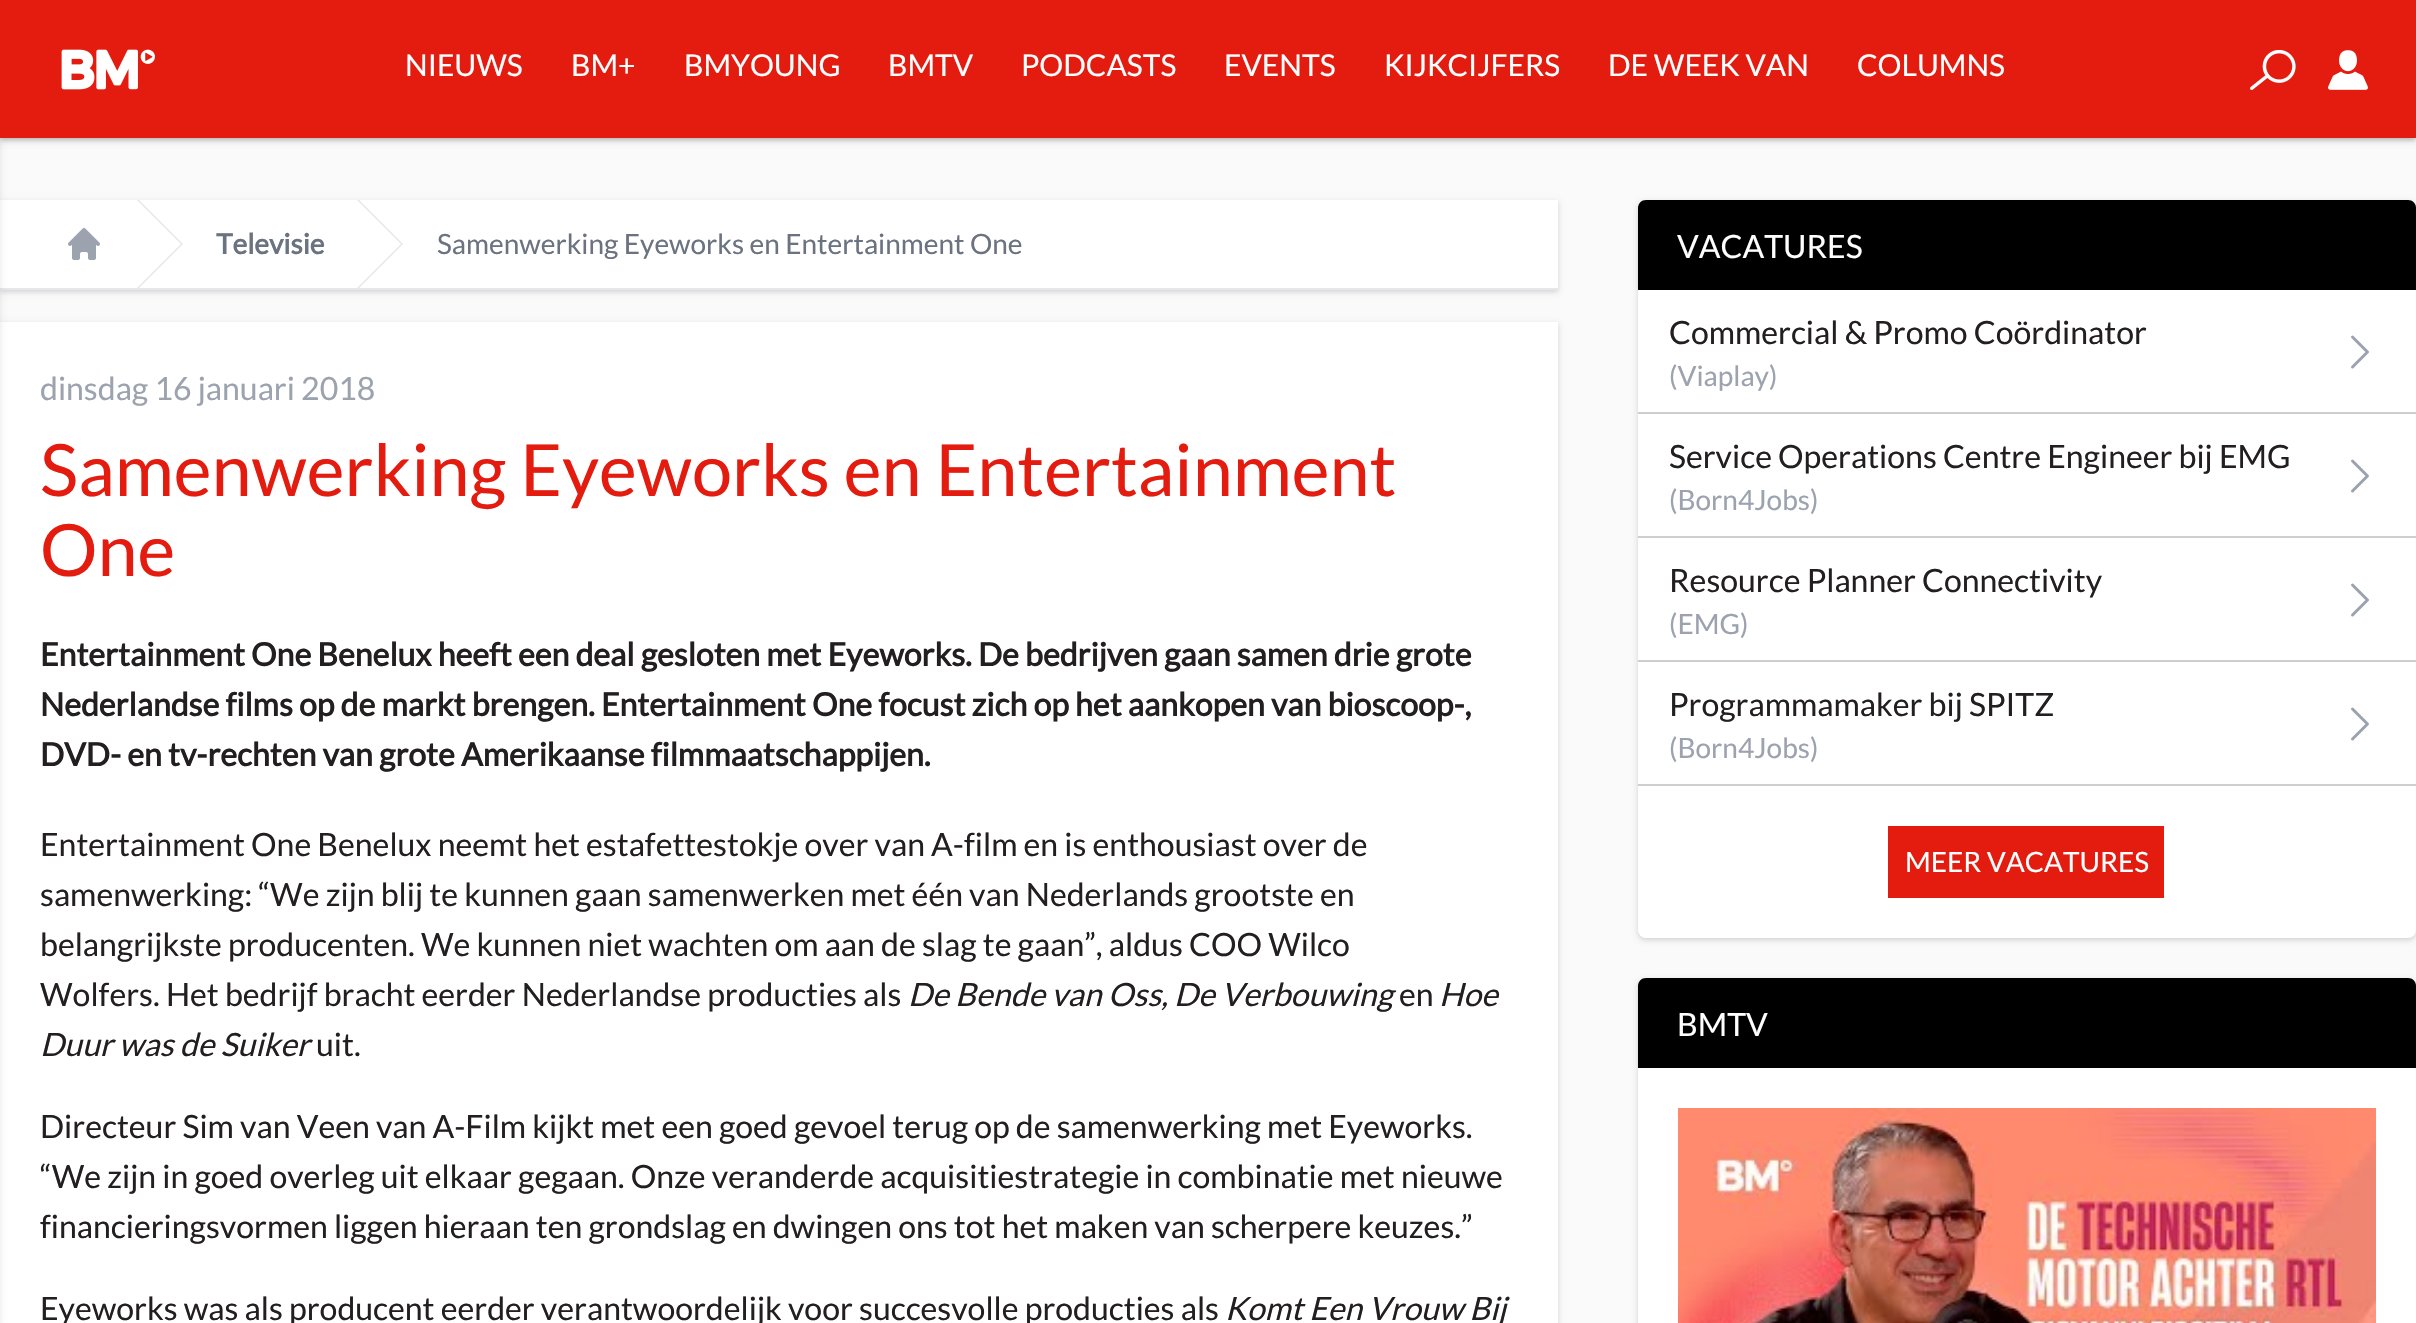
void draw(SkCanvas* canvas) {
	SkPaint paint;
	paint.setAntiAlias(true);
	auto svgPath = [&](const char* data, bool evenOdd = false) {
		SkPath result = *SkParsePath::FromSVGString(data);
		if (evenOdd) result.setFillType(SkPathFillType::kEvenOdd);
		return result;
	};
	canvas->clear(0xfffafafa);
	paint.setColor(0x0f000000);
	paint.setMaskFilter(SkMaskFilter::MakeBlur(kNormal_SkBlurStyle, 2));
	canvas->drawRect(SkRect::MakeXYWH(0, 202, 1558, 90), paint);
	paint.setMaskFilter(nullptr);
	paint.setColor(0x1a000000);
	paint.setMaskFilter(SkMaskFilter::MakeBlur(kNormal_SkBlurStyle, 3));
	canvas->drawRect(SkRect::MakeXYWH(0, 202, 1558, 90), paint);
	paint.setMaskFilter(nullptr);
	paint.setColor(0xffffffff);
	canvas->drawRect(SkRect::MakeXYWH(0, 200, 1558, 88), paint);
	paint.setColor(0xffe5e7eb);
	canvas->drawRect(SkRect::MakeXYWH(0, 288, 1558, 2), paint);
	paint.setColor(0x0f000000);
	paint.setMaskFilter(SkMaskFilter::MakeBlur(kNormal_SkBlurStyle, 2));
	canvas->drawRect(SkRect::MakeXYWH(0, 324, 1558, 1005), paint);
	paint.setMaskFilter(nullptr);
	paint.setColor(0x1a000000);
	paint.setMaskFilter(SkMaskFilter::MakeBlur(kNormal_SkBlurStyle, 3));
	canvas->drawRect(SkRect::MakeXYWH(0, 324, 1558, 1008), paint);
	paint.setMaskFilter(nullptr);
	paint.setColor(0xffffffff);
	canvas->drawRect(SkRect::MakeXYWH(0, 322, 1558, 1001), paint);
	paint.setColor(0x1a000000);
	paint.setMaskFilter(SkMaskFilter::MakeBlur(kNormal_SkBlurStyle, 3));
	canvas->drawRect(SkRect::MakeXYWH(-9, 2, 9, 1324), paint);
	paint.setMaskFilter(nullptr);
	paint.setColor(0x0f000000);
	paint.setMaskFilter(SkMaskFilter::MakeBlur(kNormal_SkBlurStyle, 2));
	canvas->drawRect(SkRect::MakeXYWH(0, 2, 2416, 138), paint);
	paint.setMaskFilter(nullptr);
	paint.setColor(0x1a000000);
	paint.setMaskFilter(SkMaskFilter::MakeBlur(kNormal_SkBlurStyle, 3));
	canvas->drawRect(SkRect::MakeXYWH(0, 2, 2416, 138), paint);
	paint.setMaskFilter(nullptr);
	paint.setColor(0x0f000000);
	paint.setMaskFilter(SkMaskFilter::MakeBlur(kNormal_SkBlurStyle, 2));
	canvas->drawRect(SkRect::MakeXYWH(0, 2, 2416, 138), paint);
	paint.setMaskFilter(nullptr);
	paint.setColor(0x1a000000);
	paint.setMaskFilter(SkMaskFilter::MakeBlur(kNormal_SkBlurStyle, 3));
	canvas->drawRect(SkRect::MakeXYWH(0, 2, 2416, 138), paint);
	paint.setMaskFilter(nullptr);
	paint.setColor(0xffe31c0f);
	canvas->drawRect(SkRect::MakeXYWH(0, 0, 2416, 138), paint);
	canvas->drawImageRect(SkImages::DeferredFromEncodedData(SkData::MakeFromFileName("img1.png")), SkRect::MakeXYWH(61, 49, 94, 41), SkSamplingOptions());
	SkFont f1(fontMgr->matchFamilyStyle("Lato", SkFontStyle::Normal()), 30);
	f1.setSubpixel(true);
	paint.setColor(0xffffffff);
	canvas->drawString("NIEUWS", 405, 76, f1, paint);
	canvas->drawString("BM+", 571, 76, f1, paint);
	canvas->drawString("BMYOUNG", 684, 76, f1, paint);
	canvas->drawString("BMTV", 888, 76, f1, paint);
	canvas->drawString("PODCASTS", 1021, 76, f1, paint);
	canvas->drawString("EVENTS", 1224, 76, f1, paint);
	canvas->drawString("KIJKCIJFERS", 1384, 76, f1, paint);
	canvas->drawString("DE WEEK VAN", 1608, 76, f1, paint);
	canvas->drawString("COLUMNS", 1857, 76, f1, paint);
	canvas->drawImageRect(SkImages::DeferredFromEncodedData(SkData::MakeFromFileName("img2.png")), SkRect::MakeXYWH(2250, 50, 46, 40), SkSamplingOptions());
	canvas->drawImageRect(SkImages::DeferredFromEncodedData(SkData::MakeFromFileName("img3.png")), SkRect::MakeXYWH(2328, 50, 40, 40), SkSamplingOptions());
	canvas->drawImageRect(SkImages::DeferredFromEncodedData(SkData::MakeFromFileName("img4.png")), SkRect::MakeXYWH(68, 228, 32, 32), SkSamplingOptions());
	paint.setColor(0xffe5e7eb);
	canvas->drawPath(svgPath("M137 200L181 244L137 288H139L183 244L139 200Z"), paint);
	SkFont f2(fontMgr->matchFamilyStyle("Lato", SkFontStyle::Bold()), 28);
	f2.setSubpixel(true);
	paint.setColor(0xff6b7280);
	canvas->drawString("Televisie", 216, 254, f2, paint);
	paint.setColor(0xffe5e7eb);
	canvas->drawPath(svgPath("M357 200L401 244L357 288H359L403 244L359 200Z"), paint);
	SkFont f3(fontMgr->matchFamilyStyle("Lato", SkFontStyle::Normal()), 28);
	f3.setSubpixel(true);
	paint.setColor(0xff6b7280);
	canvas->drawString("Samenwerking Eyeworks en Entertainment One", 437, 254, f3, paint);
	SkFont f4(fontMgr->matchFamilyStyle("Lato", SkFontStyle::Normal()), 32);
	f4.setSubpixel(true);
	paint.setColor(0xff9ca3af);
	canvas->drawString("dinsdag 16 januari 2018", 40, 400, f4, paint);
	SkFont f5(fontMgr->matchFamilyStyle("Lato", SkFontStyle::Normal()), 72);
	f5.setSubpixel(true);
	paint.setColor(0xffe31c0f);
	canvas->drawString("Samenwerking Eyeworks en Entertainment", 40, 496, f5, paint);
	canvas->drawString("One", 40, 576, f5, paint);
	SkFont f6(fontMgr->matchFamilyStyle("Lato", SkFontStyle::Bold()), 32);
	f6.setSubpixel(true);
	paint.setColor(0xff231f20);
	canvas->drawString("Entertainment One Benelux heeft een deal gesloten met Eyeworks. De bedrijven gaan samen drie grote", 40, 666, f6, paint);
	canvas->drawString("Nederlandse films op de markt brengen. Entertainment One focust zich op het aankopen van bioscoop-,", 40, 716, f6, paint);
	canvas->drawString("DVD- en tv-rechten van grote Amerikaanse filmmaatschappijen.", 40, 766, f6, paint);
	canvas->drawString("Entertainment One Benelux neemt het estafettestokje over van A-film en is enthousiast over de", 40, 856, f4, paint);
	canvas->drawString("samenwerking: “We zijn blij te kunnen gaan samenwerken met één van Nederlands grootste en", 40, 906, f4, paint);
	canvas->drawString("belangrijkste producenten. We kunnen niet wachten om aan de slag te gaan”, aldus COO Wilco", 40, 956, f4, paint);
	canvas->drawString("Wolfers. Het bedrijf bracht eerder Nederlandse producties als", 40, 1006, f4, paint);
	SkFont f7(fontMgr->matchFamilyStyle("Lato", SkFontStyle::Italic()), 32);
	f7.setSubpixel(true);
	canvas->drawString("De Bende van Oss, De Verbouwing", 908, 1006, f7, paint);
	canvas->drawString("en", 1399, 1006, f4, paint);
	canvas->drawString("Hoe", 1439, 1006, f7, paint);
	canvas->drawString("Duur was de Suiker", 40, 1056, f7, paint);
	canvas->drawString("uit.", 316, 1056, f4, paint);
	canvas->drawString("Directeur Sim van Veen van A-Film kijkt met een goed gevoel terug op de samenwerking met Eyeworks.", 40, 1138, f4, paint);
	canvas->drawString("“We zijn in goed overleg uit elkaar gegaan. Onze veranderde acquisitiestrategie in combinatie met nieuwe", 40, 1188, f4, paint);
	canvas->drawString("financieringsvormen liggen hieraan ten grondslag en dwingen ons tot het maken van scherpere keuzes.”", 40, 1238, f4, paint);
	canvas->drawString("Eyeworks was als producent eerder verantwoordelijk voor succesvolle producties als", 40, 1320, f4, paint);
	canvas->drawString("Komt Een Vrouw Bij", 1225, 1320, f7, paint);
	paint.setColor(0x0f000000);
	paint.setMaskFilter(SkMaskFilter::MakeBlur(kNormal_SkBlurStyle, 2));
	canvas->drawRoundRect(SkRect::MakeXYWH(1638, 202, 778, 738), 8, 8, paint);
	paint.setMaskFilter(nullptr);
	paint.setColor(0x1a000000);
	paint.setMaskFilter(SkMaskFilter::MakeBlur(kNormal_SkBlurStyle, 3));
	canvas->drawRoundRect(SkRect::MakeXYWH(1638, 202, 778, 738), 8, 8, paint);
	paint.setMaskFilter(nullptr);
	paint.setColor(0xffffffff);
	canvas->drawRoundRect(SkRect::MakeXYWH(1638, 200, 778, 738), 8, 8, paint);
	paint.setColor(0xff000000);
	canvas->drawPath(svgPath("M1646 200H2408C2412.5 200 2416 203.5 2416 208V290H1638V208C1638 203.5 1641.5 200 1646 200Z"), paint);
	paint.setColor(0xffffffff);
	canvas->drawString("VACATURES", 1677, 258, f4, paint);
	paint.setColor(0xffcecece);
	canvas->drawRect(SkRect::MakeXYWH(1638, 412, 778, 2), paint);
	paint.setColor(0xff231f20);
	canvas->drawString("Commercial & Promo Coördinator", 1669, 344, f4, paint);
	paint.setColor(0xff9ca3af);
	canvas->drawString("(Viaplay)", 1669, 386, f3, paint);
	paint.setStroke(true);
	paint.setStrokeWidth(3);
	paint.setStrokeCap(SkPaint::kRound_Cap);
	paint.setStrokeJoin(SkPaint::kRound_Join);
	canvas->drawPath(svgPath("M2352.5 337L2367.5 352L2352.5 367"), paint);
	paint.setStroke(false);
	paint.setColor(0xffcecece);
	canvas->drawRect(SkRect::MakeXYWH(1638, 536, 778, 2), paint);
	paint.setColor(0xff231f20);
	canvas->drawString("Service Operations Centre Engineer bij EMG", 1669, 468, f4, paint);
	paint.setColor(0xff9ca3af);
	canvas->drawString("(Born4Jobs)", 1669, 510, f3, paint);
	paint.setStroke(true);
	canvas->drawPath(svgPath("M2352.5 461L2367.5 476L2352.5 491"), paint);
	paint.setStroke(false);
	paint.setColor(0xffcecece);
	canvas->drawRect(SkRect::MakeXYWH(1638, 660, 778, 2), paint);
	paint.setColor(0xff231f20);
	canvas->drawString("Resource Planner Connectivity", 1669, 592, f4, paint);
	paint.setColor(0xff9ca3af);
	canvas->drawString("(EMG)", 1669, 634, f3, paint);
	paint.setStroke(true);
	canvas->drawPath(svgPath("M2352.5 585L2367.5 600L2352.5 615"), paint);
	paint.setStroke(false);
	paint.setColor(0xffcecece);
	canvas->drawRect(SkRect::MakeXYWH(1638, 784, 778, 2), paint);
	paint.setColor(0xff231f20);
	canvas->drawString("Programmamaker bij SPITZ", 1669, 716, f4, paint);
	paint.setColor(0xff9ca3af);
	canvas->drawString("(Born4Jobs)", 1669, 758, f3, paint);
	paint.setStroke(true);
	canvas->drawPath(svgPath("M2352.5 709L2367.5 724L2352.5 739"), paint);
	paint.setStroke(false);
	paint.setColor(0xffe31c0f);
	canvas->drawRect(SkRect::MakeXYWH(1888, 826, 276, 72), paint);
	paint.setColor(0xffffffff);
	canvas->drawString("MEER VACATURES", 1905, 872, f3, paint);
	paint.setColor(0x0f000000);
	paint.setMaskFilter(SkMaskFilter::MakeBlur(kNormal_SkBlurStyle, 2));
	canvas->drawRoundRect(SkRect::MakeXYWH(1638, 980, 778, 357), 8, 8, paint);
	paint.setMaskFilter(nullptr);
	paint.setColor(0x1a000000);
	paint.setMaskFilter(SkMaskFilter::MakeBlur(kNormal_SkBlurStyle, 3));
	canvas->drawRoundRect(SkRect::MakeXYWH(1638, 980, 778, 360), 8, 8, paint);
	paint.setMaskFilter(nullptr);
	paint.setColor(0xffffffff);
	canvas->drawRoundRect(SkRect::MakeXYWH(1638, 978, 778, 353), 8, 8, paint);
	paint.setColor(0xff000000);
	canvas->drawPath(svgPath("M1646 978H2408C2412.5 978 2416 981.5 2416 986V1068H1638V986C1638 981.5 1641.5 978 1646 978Z"), paint);
	paint.setColor(0xffffffff);
	canvas->drawString("BMTV", 1677, 1036, f4, paint);
	canvas->drawImageRect(SkImages::DeferredFromEncodedData(SkData::MakeFromFileName("img5.png")), SkRect::MakeXYWH(1678, 1108, 698, 215), SkSamplingOptions());
}
